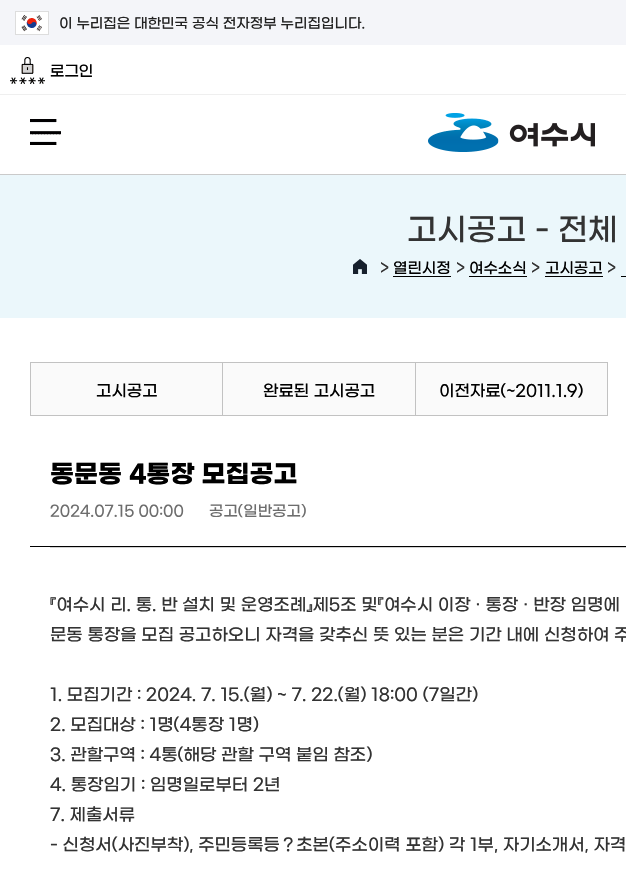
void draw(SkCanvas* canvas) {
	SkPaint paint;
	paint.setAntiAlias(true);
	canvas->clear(0xffffffff);
	paint.setColor(0xfff4f5f9);
	canvas->drawRect(SkRect::MakeXYWH(0, 0, 626, 45), paint);
	paint.setColor(0xffffffff);
	canvas->drawRect(SkRect::MakeXYWH(16, 12, 32, 22), paint);
	canvas->drawImageRect(SkImages::DeferredFromEncodedData(SkData::MakeFromFileName("img1.png")), SkRect::MakeXYWH(21, 15, 21, 17), SkSamplingOptions());
	paint.setStroke(true);
	paint.setStrokeWidth(1);
	paint.setColor(0xffdddddd);
	canvas->drawRect(SkRect::MakeXYWH(15.5, 11.5, 33, 23), paint);
	SkFont f1(fontMgr->matchFamilyStyle("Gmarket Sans", SkFontStyle(500, SkFontStyle::kNormal_Width, SkFontStyle::kUpright_Slant)), 14);
	f1.setSubpixel(true);
	paint.setStroke(false);
	paint.setColor(0xff222222);
	canvas->drawString("이 누리집은 대한민국 공식 전자정부 누리집입니다.", 59, 26, f1, paint);
	paint.setColor(0xffefefef);
	canvas->drawRect(SkRect::MakeXYWH(0, 94, 626, 1), paint);
	canvas->drawImageRect(SkImages::DeferredFromEncodedData(SkData::MakeFromFileName("img2.png")), SkRect::MakeXYWH(10, 57, 35, 27), SkSamplingOptions());
	SkFont f2(fontMgr->matchFamilyStyle("Gmarket Sans", SkFontStyle(500, SkFontStyle::kNormal_Width, SkFontStyle::kUpright_Slant)), 15);
	f2.setSubpixel(true);
	paint.setColor(0xff000000);
	canvas->drawString("로그인", 50, 74, f2, paint);
	paint.setColor(0xffcacaca);
	canvas->drawRect(SkRect::MakeXYWH(0, 174, 626, 1), paint);
	canvas->drawImageRect(SkImages::DeferredFromEncodedData(SkData::MakeFromFileName("img3.png")), SkRect::MakeXYWH(30, 119, 31, 26), SkSamplingOptions());
	canvas->drawImageRect(SkImages::DeferredFromEncodedData(SkData::MakeFromFileName("img4.png")), SkRect::MakeXYWH(428, 113, 167, 39), SkSamplingOptions());
	paint.setColor(0xffebf7fb);
	canvas->drawRect(SkRect::MakeXYWH(0, 175, 626, 143), paint);
	SkFont f3(fontMgr->matchFamilyStyle("Gmarket Sans", SkFontStyle(500, SkFontStyle::kNormal_Width, SkFontStyle::kUpright_Slant)), 31);
	f3.setSubpixel(true);
	paint.setColor(0xff333333);
	canvas->drawString("고시공고 - 전체", 407, 236, f3, paint);
	canvas->drawImageRect(SkImages::DeferredFromEncodedData(SkData::MakeFromFileName("img5.png")), SkRect::MakeXYWH(353, 259, 14, 15), SkSamplingOptions());
	SkFont f4(fontMgr->matchFamilyStyle("Gmarket Sans", SkFontStyle(500, SkFontStyle::kNormal_Width, SkFontStyle::kUpright_Slant)), 16);
	f4.setSubpixel(true);
	canvas->drawString(">", 380, 271, f4, paint);
	paint.setColor(0xff000000);
	canvas->drawString("열린시정", 393, 271, f2, paint);
	canvas->drawRect(SkRect::MakeXYWH(393, 276, 58, 1), paint);
	paint.setColor(0xff333333);
	canvas->drawString(">", 456, 271, f4, paint);
	paint.setColor(0xff000000);
	canvas->drawString("여수소식", 469, 271, f2, paint);
	canvas->drawRect(SkRect::MakeXYWH(469, 276, 58, 1), paint);
	paint.setColor(0xff333333);
	canvas->drawString(">", 531, 271, f4, paint);
	paint.setColor(0xff000000);
	canvas->drawString("고시공고", 545, 271, f2, paint);
	canvas->drawRect(SkRect::MakeXYWH(545, 276, 58, 1), paint);
	paint.setColor(0xff333333);
	canvas->drawString(">", 607, 271, f4, paint);
	paint.setColor(0xff000000);
	canvas->drawRect(SkRect::MakeXYWH(621, 276, 5, 1), paint);
	paint.setColor(0xfffafafa);
	canvas->drawRect(SkRect::MakeXYWH(30.5, 362.5, 192, 53), paint);
	paint.setStroke(true);
	paint.setColor(0xffc2c2c2);
	canvas->drawRect(SkRect::MakeXYWH(30.5, 362.5, 192, 53), paint);
	paint.setStroke(false);
	paint.setColor(0xff000000);
	canvas->drawString("고시공고", 96, 394, f4, paint);
	paint.setColor(0xfffafafa);
	canvas->drawRect(SkRect::MakeXYWH(223, 363, 192, 52), paint);
	paint.setColor(0xffc2c2c2);
	canvas->drawRect(SkRect::MakeXYWH(223, 362, 385, 1), paint);
	canvas->drawRect(SkRect::MakeXYWH(415, 362, 1, 54), paint);
	canvas->drawRect(SkRect::MakeXYWH(223, 415, 193, 1), paint);
	paint.setColor(0xff000000);
	canvas->drawString("완료된 고시공고", 263, 394, f4, paint);
	paint.setColor(0xfffafafa);
	canvas->drawRect(SkRect::MakeXYWH(416, 363, 191, 52), paint);
	paint.setColor(0xffc2c2c2);
	canvas->drawRect(SkRect::MakeXYWH(607, 362, 1, 54), paint);
	canvas->drawRect(SkRect::MakeXYWH(416, 415, 192, 1), paint);
	paint.setColor(0xff000000);
	canvas->drawString("이전자료(~2011.1.9)", 439, 394, f4, paint);
	canvas->drawRect(SkRect::MakeXYWH(30, 546, 596, 1), paint);
	SkFont f5(fontMgr->matchFamilyStyle("Gmarket Sans", SkFontStyle::Bold()), 25);
	f5.setSubpixel(true);
	canvas->drawString("동문동 4통장 모집공고", 50, 479, f5, paint);
	paint.setColor(0xff6d6d6d);
	canvas->drawString("2024.07.15 00:00", 50, 514, f2, paint);
	canvas->drawString("공고(일반공고)", 209, 514, f2, paint);
	paint.setColor(0xffd2d2d2);
	canvas->drawRect(SkRect::MakeXYWH(50, 547, 576, 1), paint);
	SkFont f6(fontMgr->matchFamilyStyle("Gmarket Sans", SkFontStyle(500, SkFontStyle::kNormal_Width, SkFontStyle::kUpright_Slant)), 17);
	f6.setSubpixel(true);
	paint.setColor(0xff333333);
	canvas->drawString("『여수시 리. 통. 반 설치 및 운영조례』제5조 및『여수시 이장 · 통장 · 반장 임명에", 50, 608, f6, paint);
	canvas->drawString("문동 통장을 모집 공고하오니 자격을 갖추신 뜻 있는 분은 기간 내에 신청하여 주", 50, 638, f6, paint);
	canvas->drawString("1. 모집기간 : 2024. 7. 15.(월) ~ 7. 22.(월) 18:00 (7일간)", 50, 698, f6, paint);
	canvas->drawString("2. 모집대상 : 1명(4통장 1명)", 50, 728, f6, paint);
	canvas->drawString("3. 관할구역 : 4통(해당 관할 구역 붙임 참조)", 50, 758, f6, paint);
	canvas->drawString("4. 통장임기 : 임명일로부터 2년", 50, 788, f6, paint);
	canvas->drawString("7. 제출서류", 50, 818, f6, paint);
	canvas->drawString("- 신청서(사진부착), 주민등록등？초본(주소이력 포함) 각 1부, 자기소개서, 자격", 50, 848, f6, paint);
}
